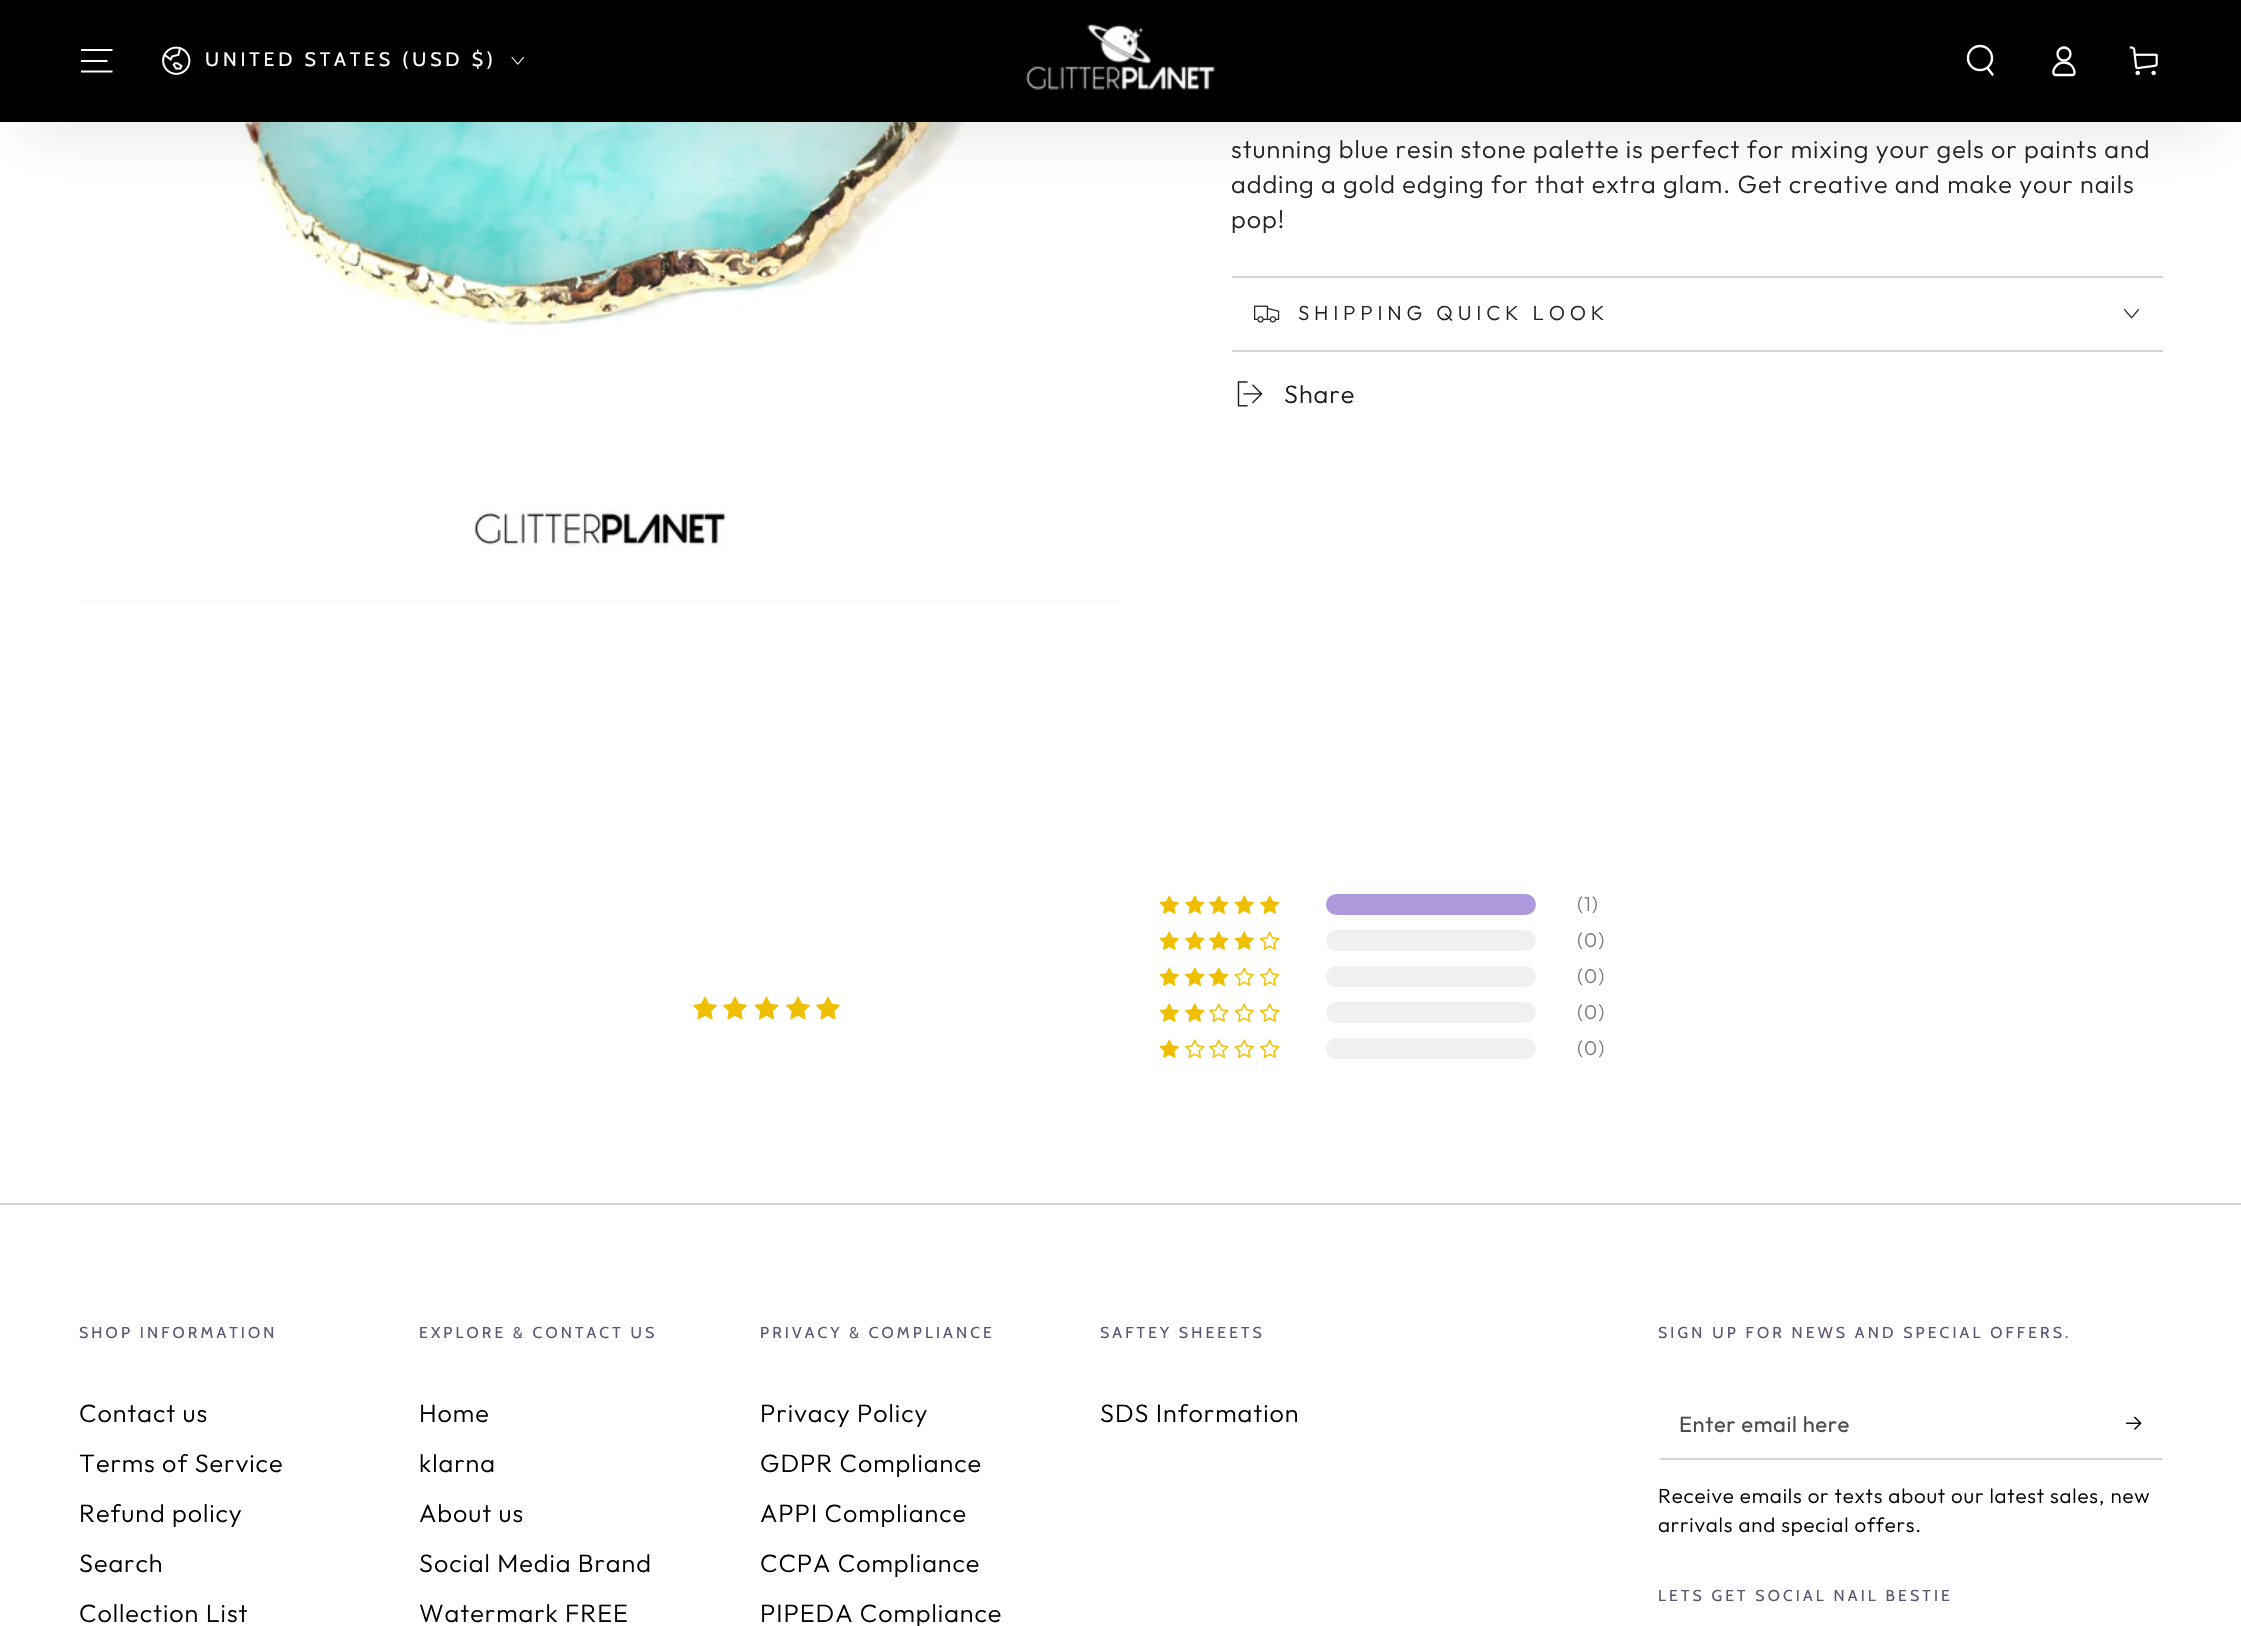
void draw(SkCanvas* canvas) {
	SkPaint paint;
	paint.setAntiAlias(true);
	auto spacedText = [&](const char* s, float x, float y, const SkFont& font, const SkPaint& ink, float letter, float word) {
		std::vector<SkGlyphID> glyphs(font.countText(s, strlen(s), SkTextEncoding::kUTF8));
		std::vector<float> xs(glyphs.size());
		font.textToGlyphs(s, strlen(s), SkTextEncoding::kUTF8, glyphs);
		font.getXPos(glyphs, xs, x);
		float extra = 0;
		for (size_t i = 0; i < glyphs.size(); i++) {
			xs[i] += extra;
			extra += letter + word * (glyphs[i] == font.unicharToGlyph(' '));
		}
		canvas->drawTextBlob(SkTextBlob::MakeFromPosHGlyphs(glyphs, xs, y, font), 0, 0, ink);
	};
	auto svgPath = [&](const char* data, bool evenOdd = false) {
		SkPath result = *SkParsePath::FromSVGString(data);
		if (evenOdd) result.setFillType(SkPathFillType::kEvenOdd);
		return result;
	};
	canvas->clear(0xffffffff);
	canvas->drawImageRect(SkImages::DeferredFromEncodedData(SkData::MakeFromFileName("img5.png")), SkRect::MakeXYWH(80, 122, 1041, 479), SkSamplingOptions());
	paint.setColor(0x33212326);
	paint.setMaskFilter(SkMaskFilter::MakeBlur(kNormal_SkBlurStyle, 31.5));
	canvas->drawRoundRect(SkRect::MakeXYWH(24, 90, 2193, 32), 16, 16, paint);
	paint.setMaskFilter(nullptr);
	paint.setColor(0xff000000);
	canvas->drawRect(SkRect::MakeXYWH(0, 0, 2241, 122), paint);
	paint.setStroke(true);
	paint.setStrokeWidth(2.2);
	paint.setColor(0xffffffff);
	canvas->drawPath(svgPath("M81 71.5H112.5M81 61H107.5M81 50H112.5"), paint);
	canvas->drawImageRect(SkImages::DeferredFromEncodedData(SkData::MakeFromFileName("img1.png")), SkRect::MakeXYWH(162, 46, 29, 29), SkSamplingOptions());
	SkFont f1(fontMgr->matchFamilyStyle("Cabin", SkFontStyle::Normal()), 19.4);
	f1.setSubpixel(true);
	paint.setStroke(false);
	spacedText("UNITED STATES (USD $)", 205, 66, f1, paint, 3.9, 0);
	canvas->drawImageRect(SkImages::DeferredFromEncodedData(SkData::MakeFromFileName("img2.png")), SkRect::MakeXYWH(511, 56, 13, 9), SkSamplingOptions());
	canvas->drawImageRect(SkImages::DeferredFromEncodedData(SkData::MakeFromFileName("img3.png")), SkRect::MakeXYWH(1025, 24, 191, 66), SkSamplingOptions());
	paint.setStroke(true);
	paint.setStrokeWidth(2.4);
	canvas->drawCircle(1980, 58, 12, paint);
	paint.setStrokeCap(SkPaint::kRound_Cap);
	canvas->drawPath(svgPath("M1987.5 68L1992.5 74.5"), paint);
	paint.setStrokeWidth(2.3);
	paint.setStrokeCap(SkPaint::kButt_Cap);
	canvas->drawPath(svgPath("M2064 62.5C2054.5 62.5 2050 75 2056 75H2073C2076.5 73.5 2073 67 2071.5 65.5C2069.5 63.5 2066.5 62.5 2064 62.5Z"), paint);
	canvas->drawCircle(2064, 54, 6.5, paint);
	canvas->drawImageRect(SkImages::DeferredFromEncodedData(SkData::MakeFromFileName("img4.png")), SkRect::MakeXYWH(2129, 46, 29, 30), SkSamplingOptions());
	paint.setStroke(false);
	paint.setColor(0xfff3f3f3);
	canvas->drawRect(SkRect::MakeXYWH(80, 601, 1041, 1), paint);
	SkFont f2(fontMgr->matchFamilyStyle("Outfit", SkFontStyle(300, SkFontStyle::kNormal_Width, SkFontStyle::kUpright_Slant)), 25.2);
	f2.setSubpixel(true);
	paint.setColor(0xff212326);
	spacedText("stunning blue resin stone palette is perfect for mixing your gels or paints and", 1231, 158, f2, paint, 0.95, 0);
	spacedText("adding a gold edging for that extra glam. Get creative and make your nails", 1231, 193, f2, paint, 0.95, 0);
	spacedText("pop!", 1231, 228, f2, paint, 0.95, 0);
	paint.setColor(0xffd2d5d9);
	canvas->drawRect(SkRect::MakeXYWH(1232, 276, 931, 2), paint);
	canvas->drawRect(SkRect::MakeXYWH(1232, 350, 931, 2), paint);
	canvas->drawImageRect(SkImages::DeferredFromEncodedData(SkData::MakeFromFileName("img6.png")), SkRect::MakeXYWH(1254, 305, 26, 18), SkSamplingOptions());
	SkFont f3(fontMgr->matchFamilyStyle("Outfit", SkFontStyle(300, SkFontStyle::kNormal_Width, SkFontStyle::kUpright_Slant)), 20.5);
	f3.setSubpixel(true);
	paint.setColor(0xff212326);
	spacedText("SHIPPING QUICK LOOK", 1298, 320, f3, paint, 4.75, 0);
	canvas->drawImageRect(SkImages::DeferredFromEncodedData(SkData::MakeFromFileName("img7.png")), SkRect::MakeXYWH(2124, 309, 15, 9), SkSamplingOptions());
	canvas->drawImageRect(SkImages::DeferredFromEncodedData(SkData::MakeFromFileName("img8.png")), SkRect::MakeXYWH(1237, 381, 26, 26), SkSamplingOptions());
	paint.setColor(0xff1a1b18);
	spacedText("Share", 1284, 403, f2, paint, 0.95, 0);
	canvas->drawImageRect(SkImages::DeferredFromEncodedData(SkData::MakeFromFileName("img9.png")), SkRect::MakeXYWH(693, 996, 24, 24), SkSamplingOptions());
	canvas->drawImageRect(SkImages::DeferredFromEncodedData(SkData::MakeFromFileName("img9.png")), SkRect::MakeXYWH(723, 996, 24, 24), SkSamplingOptions());
	canvas->drawImageRect(SkImages::DeferredFromEncodedData(SkData::MakeFromFileName("img10.png")), SkRect::MakeXYWH(754, 996, 25, 24), SkSamplingOptions());
	canvas->drawImageRect(SkImages::DeferredFromEncodedData(SkData::MakeFromFileName("img9.png")), SkRect::MakeXYWH(786, 996, 24, 24), SkSamplingOptions());
	canvas->drawImageRect(SkImages::DeferredFromEncodedData(SkData::MakeFromFileName("img9.png")), SkRect::MakeXYWH(816, 996, 24, 24), SkSamplingOptions());
	canvas->drawImageRect(SkImages::DeferredFromEncodedData(SkData::MakeFromFileName("img11.png")), SkRect::MakeXYWH(1159, 895, 20, 19), SkSamplingOptions());
	canvas->drawImageRect(SkImages::DeferredFromEncodedData(SkData::MakeFromFileName("img12.png")), SkRect::MakeXYWH(1185, 895, 20, 19), SkSamplingOptions());
	canvas->drawImageRect(SkImages::DeferredFromEncodedData(SkData::MakeFromFileName("img12.png")), SkRect::MakeXYWH(1209, 895, 20, 19), SkSamplingOptions());
	canvas->drawImageRect(SkImages::DeferredFromEncodedData(SkData::MakeFromFileName("img11.png")), SkRect::MakeXYWH(1234, 895, 20, 19), SkSamplingOptions());
	canvas->drawImageRect(SkImages::DeferredFromEncodedData(SkData::MakeFromFileName("img12.png")), SkRect::MakeXYWH(1260, 895, 20, 19), SkSamplingOptions());
	paint.setColor(0xffae99dc);
	canvas->drawRoundRect(SkRect::MakeXYWH(1326, 894, 210, 21), 10.5, 10.5, paint);
	SkFont f4(fontMgr->matchFamilyStyle("Outfit", SkFontStyle(300, SkFontStyle::kNormal_Width, SkFontStyle::kUpright_Slant)), 20);
	f4.setSubpixel(true);
	paint.setColor(0xff7b7b7b);
	spacedText("(1)", 1577, 911, f4, paint, 0.95, 0);
	canvas->drawImageRect(SkImages::DeferredFromEncodedData(SkData::MakeFromFileName("img11.png")), SkRect::MakeXYWH(1159, 931, 20, 19), SkSamplingOptions());
	canvas->drawImageRect(SkImages::DeferredFromEncodedData(SkData::MakeFromFileName("img12.png")), SkRect::MakeXYWH(1185, 931, 20, 19), SkSamplingOptions());
	canvas->drawImageRect(SkImages::DeferredFromEncodedData(SkData::MakeFromFileName("img12.png")), SkRect::MakeXYWH(1209, 931, 20, 19), SkSamplingOptions());
	canvas->drawImageRect(SkImages::DeferredFromEncodedData(SkData::MakeFromFileName("img11.png")), SkRect::MakeXYWH(1234, 931, 20, 19), SkSamplingOptions());
	canvas->drawImageRect(SkImages::DeferredFromEncodedData(SkData::MakeFromFileName("img13.png")), SkRect::MakeXYWH(1260, 931, 20, 19), SkSamplingOptions());
	paint.setColor(0xfff0f0f0);
	canvas->drawRoundRect(SkRect::MakeXYWH(1326, 930, 210, 21), 10.5, 10.5, paint);
	paint.setColor(0xff7b7b7b);
	spacedText("(0)", 1577, 947, f4, paint, 0.95, 0);
	canvas->drawImageRect(SkImages::DeferredFromEncodedData(SkData::MakeFromFileName("img11.png")), SkRect::MakeXYWH(1159, 967, 20, 19), SkSamplingOptions());
	canvas->drawImageRect(SkImages::DeferredFromEncodedData(SkData::MakeFromFileName("img12.png")), SkRect::MakeXYWH(1185, 967, 20, 19), SkSamplingOptions());
	canvas->drawImageRect(SkImages::DeferredFromEncodedData(SkData::MakeFromFileName("img12.png")), SkRect::MakeXYWH(1209, 967, 20, 19), SkSamplingOptions());
	canvas->drawImageRect(SkImages::DeferredFromEncodedData(SkData::MakeFromFileName("img14.png")), SkRect::MakeXYWH(1234, 967, 20, 19), SkSamplingOptions());
	canvas->drawImageRect(SkImages::DeferredFromEncodedData(SkData::MakeFromFileName("img13.png")), SkRect::MakeXYWH(1260, 967, 20, 19), SkSamplingOptions());
	paint.setColor(0xfff0f0f0);
	canvas->drawRoundRect(SkRect::MakeXYWH(1326, 966, 210, 21), 10.5, 10.5, paint);
	paint.setColor(0xff7b7b7b);
	spacedText("(0)", 1577, 983, f4, paint, 0.95, 0);
	canvas->drawImageRect(SkImages::DeferredFromEncodedData(SkData::MakeFromFileName("img11.png")), SkRect::MakeXYWH(1159, 1003, 20, 19), SkSamplingOptions());
	canvas->drawImageRect(SkImages::DeferredFromEncodedData(SkData::MakeFromFileName("img12.png")), SkRect::MakeXYWH(1185, 1003, 20, 19), SkSamplingOptions());
	canvas->drawImageRect(SkImages::DeferredFromEncodedData(SkData::MakeFromFileName("img13.png")), SkRect::MakeXYWH(1209, 1003, 20, 19), SkSamplingOptions());
	canvas->drawImageRect(SkImages::DeferredFromEncodedData(SkData::MakeFromFileName("img14.png")), SkRect::MakeXYWH(1234, 1003, 20, 19), SkSamplingOptions());
	canvas->drawImageRect(SkImages::DeferredFromEncodedData(SkData::MakeFromFileName("img13.png")), SkRect::MakeXYWH(1260, 1003, 20, 19), SkSamplingOptions());
	paint.setColor(0xfff0f0f0);
	canvas->drawRoundRect(SkRect::MakeXYWH(1326, 1002, 210, 21), 10.5, 10.5, paint);
	paint.setColor(0xff7b7b7b);
	spacedText("(0)", 1577, 1019, f4, paint, 0.95, 0);
	canvas->drawImageRect(SkImages::DeferredFromEncodedData(SkData::MakeFromFileName("img11.png")), SkRect::MakeXYWH(1159, 1039, 20, 19), SkSamplingOptions());
	canvas->drawImageRect(SkImages::DeferredFromEncodedData(SkData::MakeFromFileName("img13.png")), SkRect::MakeXYWH(1185, 1039, 20, 19), SkSamplingOptions());
	canvas->drawImageRect(SkImages::DeferredFromEncodedData(SkData::MakeFromFileName("img13.png")), SkRect::MakeXYWH(1209, 1039, 20, 19), SkSamplingOptions());
	canvas->drawImageRect(SkImages::DeferredFromEncodedData(SkData::MakeFromFileName("img14.png")), SkRect::MakeXYWH(1234, 1039, 20, 19), SkSamplingOptions());
	canvas->drawImageRect(SkImages::DeferredFromEncodedData(SkData::MakeFromFileName("img13.png")), SkRect::MakeXYWH(1260, 1039, 20, 19), SkSamplingOptions());
	paint.setColor(0xfff0f0f0);
	canvas->drawRoundRect(SkRect::MakeXYWH(1326, 1038, 210, 21), 10.5, 10.5, paint);
	paint.setColor(0xff7b7b7b);
	spacedText("(0)", 1577, 1055, f4, paint, 0.95, 0);
	paint.setColor(0xffd2d5d9);
	canvas->drawRect(SkRect::MakeXYWH(0, 1203, 2241, 2), paint);
	SkFont f5(fontMgr->matchFamilyStyle("Cabin", SkFontStyle::Normal()), 15.75);
	f5.setSubpixel(true);
	paint.setColor(0xff5e5473);
	spacedText("SHOP INFORMATION", 79, 1338, f5, paint, 3.15, 0);
	paint.setColor(0xff000000);
	spacedText("Contact us", 79, 1422, f2, paint, 0.95, 0);
	spacedText("Terms of Service", 79, 1472, f2, paint, 0.95, 0);
	spacedText("Refund policy", 79, 1522, f2, paint, 0.95, 0);
	spacedText("Search", 79, 1572, f2, paint, 0.95, 0);
	spacedText("Collection List", 79, 1622, f2, paint, 0.95, 0);
	paint.setColor(0xff5e5473);
	spacedText("EXPLORE & CONTACT US", 419, 1338, f5, paint, 3.15, 0);
	paint.setColor(0xff000000);
	spacedText("Home", 419, 1422, f2, paint, 0.95, 0);
	spacedText("klarna", 419, 1472, f2, paint, 0.95, 0);
	spacedText("About us", 419, 1522, f2, paint, 0.95, 0);
	spacedText("Social Media Brand", 419, 1572, f2, paint, 0.95, 0);
	spacedText("Watermark FREE", 419, 1622, f2, paint, 0.95, 0);
	paint.setColor(0xff5e5473);
	spacedText("PRIVACY & COMPLIANCE", 760, 1338, f5, paint, 3.15, 0);
	paint.setColor(0xff000000);
	spacedText("Privacy Policy", 760, 1422, f2, paint, 0.95, 0);
	spacedText("GDPR Compliance", 760, 1472, f2, paint, 0.95, 0);
	spacedText("APPI Compliance", 760, 1522, f2, paint, 0.95, 0);
	spacedText("CCPA Compliance", 760, 1572, f2, paint, 0.95, 0);
	spacedText("PIPEDA Compliance", 760, 1622, f2, paint, 0.95, 0);
	paint.setColor(0xff5e5473);
	spacedText("SAFTEY SHEEETS", 1100, 1338, f5, paint, 3.15, 0);
	paint.setColor(0xff000000);
	spacedText("SDS Information", 1100, 1422, f2, paint, 0.95, 0);
	paint.setColor(0xff5e5473);
	spacedText("SIGN UP FOR NEWS AND SPECIAL OFFERS.", 1658, 1338, f5, paint, 3.15, 0);
	paint.setColor(0xffd2d5d9);
	canvas->drawPath(svgPath("M2163 1460H1659L1660 1458H2162Z"), paint);
	SkFont f6(fontMgr->matchFamilyStyle("Outfit", SkFontStyle::Normal()), 22);
	f6.setSubpixel(true);
	paint.setColor(0xff4d4d4d);
	spacedText("Enter email here", 1679, 1432, f6, paint, 0.6, 0);
	canvas->drawImageRect(SkImages::DeferredFromEncodedData(SkData::MakeFromFileName("img15.png")), SkRect::MakeXYWH(2126, 1416, 16, 14), SkSamplingOptions());
	paint.setColor(0xff000000);
	spacedText("Receive emails or texts about our latest sales, new", 1658, 1503, f3, paint, 0.8, 0);
	spacedText("arrivals and special offers.", 1658, 1532, f3, paint, 0.8, 0);
	paint.setColor(0xff5e5473);
	spacedText("LETS GET SOCIAL NAIL BESTIE", 1658, 1601, f5, paint, 3.15, 0);
}
